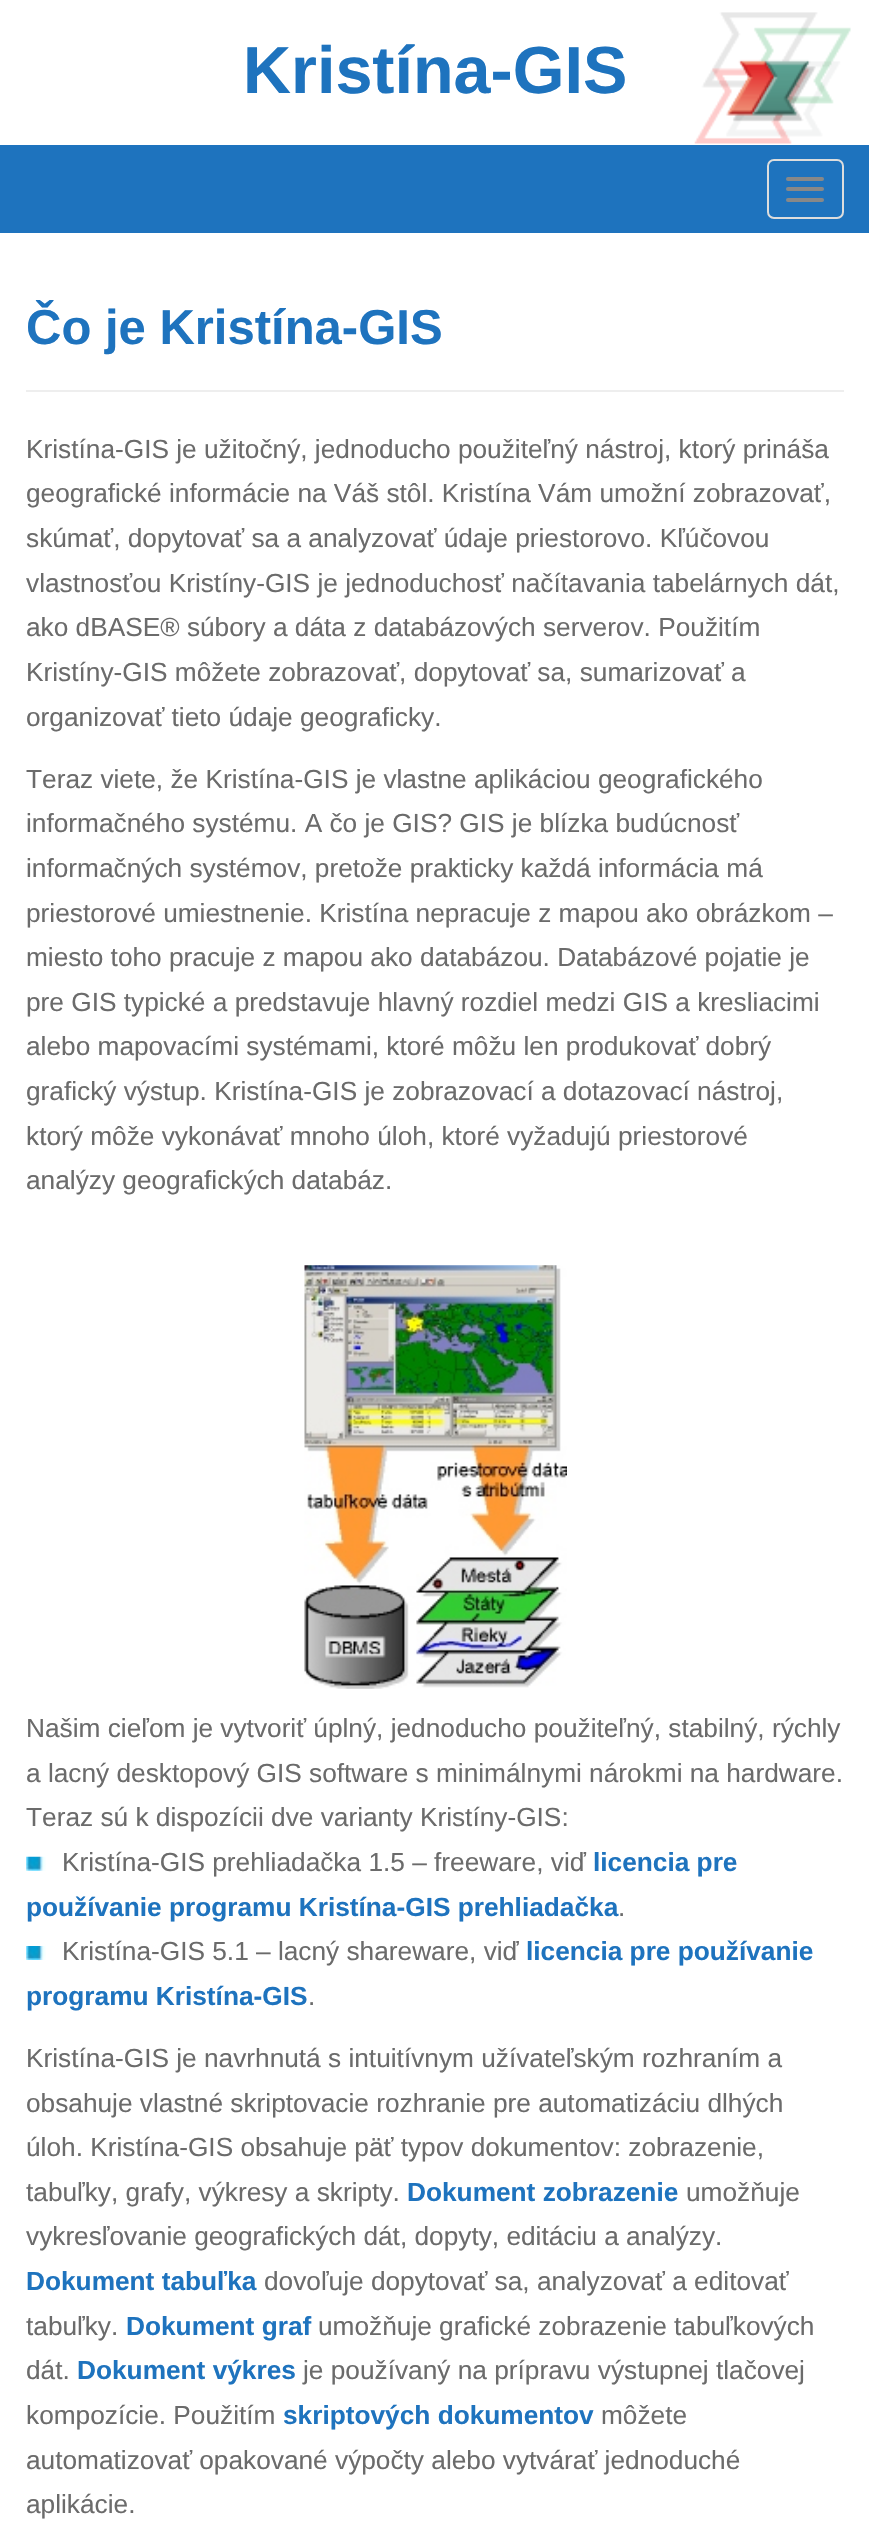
void draw(SkCanvas* canvas) {
	SkPaint paint;
	paint.setAntiAlias(true);
	canvas->clear(0xffffffff);
	canvas->drawImageRect(SkImages::DeferredFromEncodedData(SkData::MakeFromFileName("img1.png")), SkRect::MakeXYWH(694, 12, 157, 132), SkSamplingOptions());
	SkFont f1(fontMgr->matchFamilyStyle("Liberation Sans", SkFontStyle::Bold()), 66.5);
	f1.setSubpixel(true);
	paint.setColor(0xff1e73be);
	canvas->drawString("Kristína-GIS", 243, 93, f1, paint);
	canvas->drawRect(SkRect::MakeXYWH(0, 145, 869, 88), paint);
	paint.setStroke(true);
	paint.setStrokeWidth(2);
	paint.setColor(0xffdddddd);
	canvas->drawRoundRect(SkRect::MakeXYWH(768, 160, 75, 58), 6, 6, paint);
	paint.setStroke(false);
	paint.setColor(0xff888888);
	canvas->drawRoundRect(SkRect::MakeXYWH(786, 177, 38, 4), 2, 2, paint);
	canvas->drawRoundRect(SkRect::MakeXYWH(786, 187, 38, 4), 2, 2, paint);
	canvas->drawRoundRect(SkRect::MakeXYWH(786, 198, 38, 4), 2, 2, paint);
	paint.setColor(0xffeeeeee);
	canvas->drawRect(SkRect::MakeXYWH(26, 390, 818, 2), paint);
	SkFont f2(fontMgr->matchFamilyStyle("Liberation Sans", SkFontStyle::Bold()), 49);
	f2.setSubpixel(true);
	paint.setColor(0xff1e73be);
	canvas->drawString("Čo je Kristína-GIS", 26, 344, f2, paint);
	SkFont f3(fontMgr->matchFamilyStyle("Liberation Sans", SkFontStyle::Normal()), 26.25);
	f3.setSubpixel(true);
	paint.setColor(0xff6b6b6b);
	canvas->drawString("Kristína-GIS je užitočný, jednoducho použiteľný nástroj, ktorý prináša", 26, 458, f3, paint);
	canvas->drawString("geografické informácie na Váš stôl. Kristína Vám umožní zobrazovať,", 26, 502, f3, paint);
	canvas->drawString("skúmať, dopytovať sa a analyzovať údaje priestorovo. Kľúčovou", 26, 547, f3, paint);
	canvas->drawString("vlastnosťou Kristíny-GIS je jednoduchosť načítavania tabelárnych dát,", 26, 592, f3, paint);
	canvas->drawString("ako dBASE® súbory a dáta z databázových serverov. Použitím", 26, 636, f3, paint);
	canvas->drawString("Kristíny-GIS môžete zobrazovať, dopytovať sa, sumarizovať a", 26, 681, f3, paint);
	canvas->drawString("organizovať tieto údaje geograficky.", 26, 726, f3, paint);
	canvas->drawString("Teraz viete, že Kristína-GIS je vlastne aplikáciou geografického", 26, 788, f3, paint);
	canvas->drawString("informačného systému. A čo je GIS? GIS je blízka budúcnosť", 26, 832, f3, paint);
	canvas->drawString("informačných systémov, pretože prakticky každá informácia má", 26, 877, f3, paint);
	canvas->drawString("priestorové umiestnenie. Kristína nepracuje z mapou ako obrázkom –", 26, 922, f3, paint);
	canvas->drawString("miesto toho pracuje z mapou ako databázou. Databázové pojatie je", 26, 966, f3, paint);
	canvas->drawString("pre GIS typické a predstavuje hlavný rozdiel medzi GIS a kresliacimi", 26, 1011, f3, paint);
	canvas->drawString("alebo mapovacími systémami, ktoré môžu len produkovať dobrý", 26, 1055, f3, paint);
	canvas->drawString("grafický výstup. Kristína-GIS je zobrazovací a dotazovací nástroj,", 26, 1100, f3, paint);
	canvas->drawString("ktorý môže vykonávať mnoho úloh, ktoré vyžadujú priestorové", 26, 1145, f3, paint);
	canvas->drawString("analýzy geografických databáz.", 26, 1189, f3, paint);
	canvas->drawImageRect(SkImages::DeferredFromEncodedData(SkData::MakeFromFileName("img2.png")), SkRect::MakeXYWH(304, 1265, 263, 424), SkSamplingOptions());
	canvas->drawString("Našim cieľom je vytvoriť úplný, jednoducho použiteľný, stabilný, rýchly", 26, 1737, f3, paint);
	canvas->drawString("a lacný desktopový GIS software s minimálnymi nárokmi na hardware.", 26, 1782, f3, paint);
	canvas->drawString("Teraz sú k dispozícii dve varianty Kristíny-GIS:", 26, 1826, f3, paint);
	canvas->drawImageRect(SkImages::DeferredFromEncodedData(SkData::MakeFromFileName("img3.png")), SkRect::MakeXYWH(26, 1856, 20, 15), SkSamplingOptions());
	canvas->drawString("Kristína-GIS prehliadačka 1.5 – freeware, viď", 62, 1871, f3, paint);
	SkFont f4(fontMgr->matchFamilyStyle("Liberation Sans", SkFontStyle::Bold()), 26.25);
	f4.setSubpixel(true);
	paint.setColor(0xff1e73be);
	canvas->drawString("licencia pre", 593, 1871, f4, paint);
	canvas->drawString("používanie programu Kristína-GIS prehliadačka", 26, 1916, f4, paint);
	paint.setColor(0xff6b6b6b);
	canvas->drawString(".", 618, 1916, f3, paint);
	canvas->drawImageRect(SkImages::DeferredFromEncodedData(SkData::MakeFromFileName("img4.png")), SkRect::MakeXYWH(26, 1946, 20, 14), SkSamplingOptions());
	canvas->drawString("Kristína-GIS 5.1 – lacný shareware, viď", 62, 1960, f3, paint);
	paint.setColor(0xff1e73be);
	canvas->drawString("licencia pre používanie", 526, 1960, f4, paint);
	canvas->drawString("programu Kristína-GIS", 26, 2005, f4, paint);
	paint.setColor(0xff6b6b6b);
	canvas->drawString(".", 308, 2005, f3, paint);
	canvas->drawString("Kristína-GIS je navrhnutá s intuitívnym užívateľským rozhraním a", 26, 2067, f3, paint);
	canvas->drawString("obsahuje vlastné skriptovacie rozhranie pre automatizáciu dlhých", 26, 2112, f3, paint);
	canvas->drawString("úloh. Kristína-GIS obsahuje päť typov dokumentov: zobrazenie,", 26, 2156, f3, paint);
	canvas->drawString("tabuľky, grafy, výkresy a skripty.", 26, 2201, f3, paint);
	paint.setColor(0xff1e73be);
	canvas->drawString("Dokument zobrazenie", 407, 2201, f4, paint);
	paint.setColor(0xff6b6b6b);
	canvas->drawString("umožňuje", 686, 2201, f3, paint);
	canvas->drawString("vykresľovanie geografických dát, dopyty, editáciu a analýzy.", 26, 2245, f3, paint);
	paint.setColor(0xff1e73be);
	canvas->drawString("Dokument tabuľka", 26, 2290, f4, paint);
	paint.setColor(0xff6b6b6b);
	canvas->drawString("dovoľuje dopytovať sa, analyzovať a editovať", 264, 2290, f3, paint);
	canvas->drawString("tabuľky.", 26, 2335, f3, paint);
	paint.setColor(0xff1e73be);
	canvas->drawString("Dokument graf", 126, 2335, f4, paint);
	paint.setColor(0xff6b6b6b);
	canvas->drawString("umožňuje grafické zobrazenie tabuľkových", 318, 2335, f3, paint);
	canvas->drawString("dát.", 26, 2379, f3, paint);
	paint.setColor(0xff1e73be);
	canvas->drawString("Dokument výkres", 77, 2379, f4, paint);
	paint.setColor(0xff6b6b6b);
	canvas->drawString("je používaný na prípravu výstupnej tlačovej", 303, 2379, f3, paint);
	canvas->drawString("kompozície. Použitím", 26, 2424, f3, paint);
	paint.setColor(0xff1e73be);
	canvas->drawString("skriptových dokumentov", 283, 2424, f4, paint);
	paint.setColor(0xff6b6b6b);
	canvas->drawString("môžete", 601, 2424, f3, paint);
	canvas->drawString("automatizovať opakované výpočty alebo vytvárať jednoduché", 26, 2469, f3, paint);
	canvas->drawString("aplikácie.", 26, 2513, f3, paint);
}
